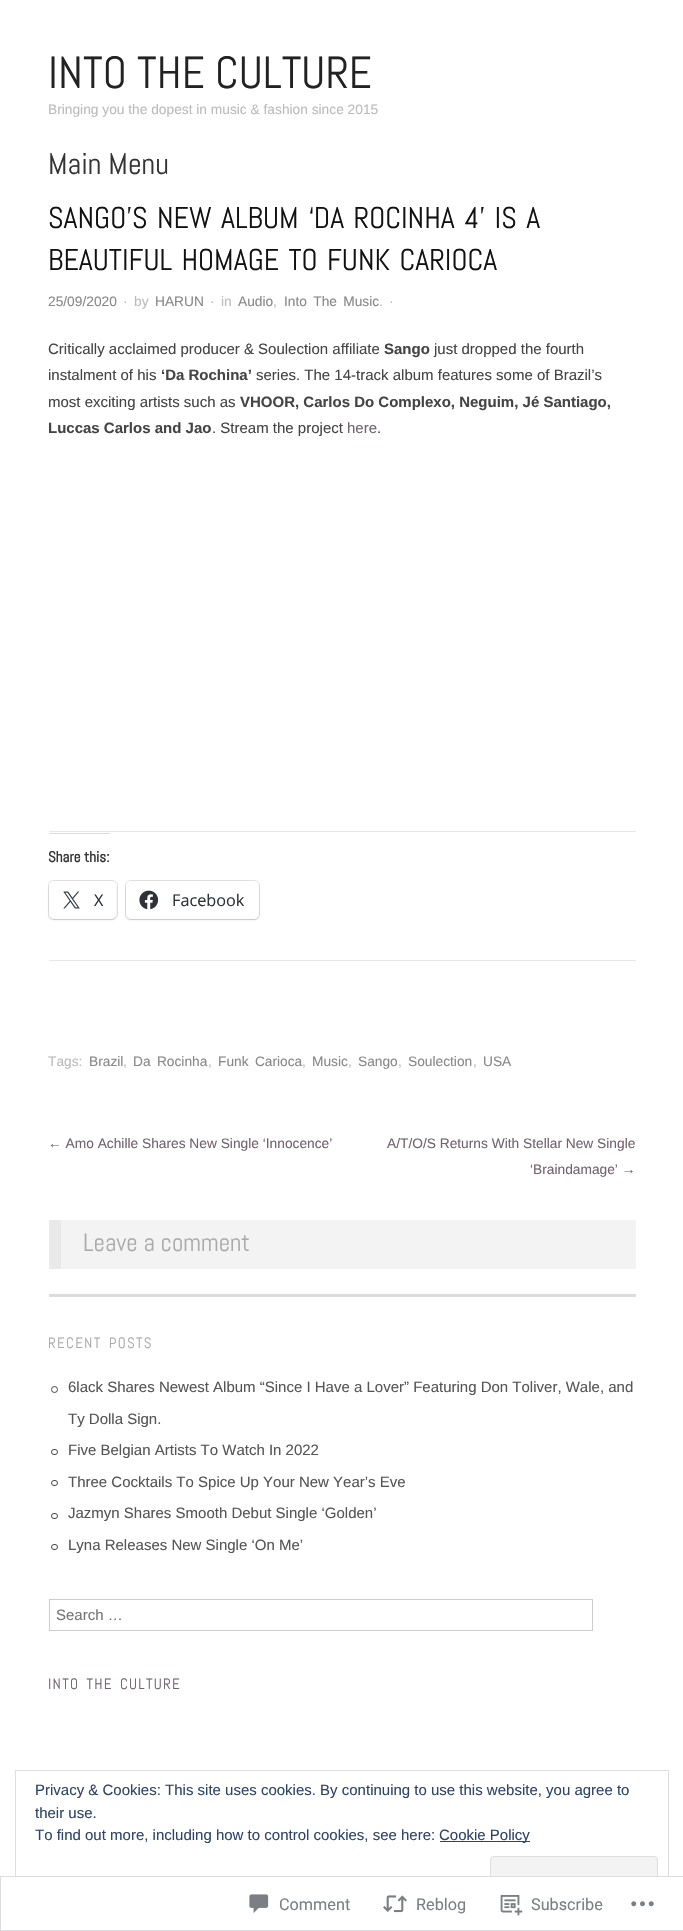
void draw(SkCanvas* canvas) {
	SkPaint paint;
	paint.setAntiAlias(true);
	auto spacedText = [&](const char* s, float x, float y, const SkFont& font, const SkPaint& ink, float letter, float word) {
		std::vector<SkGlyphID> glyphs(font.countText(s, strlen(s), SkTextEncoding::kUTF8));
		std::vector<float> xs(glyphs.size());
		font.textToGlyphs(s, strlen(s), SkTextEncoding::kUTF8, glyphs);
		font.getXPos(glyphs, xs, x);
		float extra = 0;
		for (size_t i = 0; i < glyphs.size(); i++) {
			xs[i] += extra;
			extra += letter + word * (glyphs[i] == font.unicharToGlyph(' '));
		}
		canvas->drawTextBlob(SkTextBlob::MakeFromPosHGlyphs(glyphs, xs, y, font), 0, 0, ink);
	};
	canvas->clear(0xffffffff);
	SkFont f1(fontMgr->matchFamilyStyle("Abel", SkFontStyle::Normal()), 45);
	f1.setSubpixel(true);
	paint.setColor(0xff222222);
	canvas->drawString("INTO THE CULTURE", 48, 88, f1, paint);
	SkFont f2(fontMgr->matchFamilyStyle("Liberation Sans", SkFontStyle::Normal()), 13.75);
	f2.setSubpixel(true);
	paint.setColor(0xffbbbbbb);
	canvas->drawString("Bringing you the dopest in music & fashion since 2015", 48, 114, f2, paint);
	SkFont f3(fontMgr->matchFamilyStyle("Abel", SkFontStyle::Normal()), 30);
	f3.setSubpixel(true);
	paint.setColor(0xff333333);
	canvas->drawString("Main Menu", 48, 174, f3, paint);
	paint.setColor(0xff111111);
	spacedText("SANGO’S NEW ALBUM ‘DA ROCINHA 4’ IS A", 48, 228, f3, paint, 0, 2.5);
	spacedText("BEAUTIFUL HOMAGE TO FUNK CARIOCA", 48, 270, f3, paint, 0, 2.5);
	paint.setColor(0xff888888);
	canvas->drawString("25/09/2020", 48, 306, f2, paint);
	paint.setColor(0xffbbbbbb);
	canvas->drawString("·", 123, 306, f2, paint);
	canvas->drawString("by", 134, 306, f2, paint);
	paint.setColor(0xff888888);
	canvas->drawString("HARUN", 155, 306, f2, paint);
	paint.setColor(0xffbbbbbb);
	canvas->drawString("·", 210, 306, f2, paint);
	canvas->drawString("in", 221, 306, f2, paint);
	paint.setColor(0xff888888);
	canvas->drawString("Audio", 238, 306, f2, paint);
	spacedText("Into The Music", 284, 306, f2, paint, 0, 2.5);
	paint.setColor(0xffbbbbbb);
	canvas->drawString("·", 389, 306, f2, paint);
	canvas->drawString(",", 273, 306, f2, paint);
	canvas->drawString(".", 379, 306, f2, paint);
	SkFont f4(fontMgr->matchFamilyStyle("Liberation Sans", SkFontStyle::Normal()), 15);
	f4.setSubpixel(true);
	paint.setColor(0xff444444);
	canvas->drawString("Critically acclaimed producer & Soulection affiliate", 48, 354, f4, paint);
	SkFont f5(fontMgr->matchFamilyStyle("Liberation Sans", SkFontStyle::Bold()), 15);
	f5.setSubpixel(true);
	canvas->drawString("Sango", 384, 354, f5, paint);
	canvas->drawString("just dropped the fourth", 434, 354, f4, paint);
	canvas->drawString("instalment of his", 48, 380, f4, paint);
	canvas->drawString("‘Da Rochina’", 161, 380, f5, paint);
	canvas->drawString("series. The 14-track album features some of Brazil’s", 256, 380, f4, paint);
	canvas->drawString("most exciting artists such as", 48, 407, f4, paint);
	canvas->drawString("VHOOR, Carlos Do Complexo, Neguim, Jé Santiago,", 240, 407, f5, paint);
	canvas->drawString("Luccas Carlos and Jao", 48, 433, f5, paint);
	canvas->drawString(". Stream the project", 212, 433, f4, paint);
	paint.setColor(0xff73626e);
	canvas->drawString("here", 347, 433, f4, paint);
	paint.setColor(0xff444444);
	canvas->drawString(".", 377, 433, f4, paint);
	paint.setColor(0xffe7e7e7);
	canvas->drawRect(SkRect::MakeXYWH(49, 831, 587, 1), paint);
	paint.setColor(0xffdcdcde);
	canvas->drawRect(SkRect::MakeXYWH(49, 833, 61, 1), paint);
	SkFont f6(fontMgr->matchFamilyStyle("Abel", SkFontStyle::Bold()), 15);
	f6.setSubpixel(true);
	paint.setColor(0xff333333);
	canvas->drawString("Share this:", 48, 862, f6, paint);
	paint.setStroke(true);
	paint.setStrokeWidth(1);
	paint.setColor(0xffe0e0e0);
	canvas->drawRoundRect(SkRect::MakeXYWH(48.5, 880.5, 69, 39), 5.5, 5.5, paint);
	paint.setStroke(false);
	paint.setColor(0x1f000000);
	paint.setMaskFilter(SkMaskFilter::MakeBlur(kNormal_SkBlurStyle, 1));
	canvas->drawRoundRect(SkRect::MakeXYWH(49, 883, 67, 37), 5, 5, paint);
	paint.setMaskFilter(nullptr);
	paint.setColor(0xffffffff);
	canvas->drawRoundRect(SkRect::MakeXYWH(49, 881, 67, 38), 5, 5, paint);
	canvas->drawImageRect(SkImages::DeferredFromEncodedData(SkData::MakeFromFileName("img1.png")), SkRect::MakeXYWH(63, 891, 17, 18), SkSamplingOptions());
	SkFont f7(fontMgr->matchFamilyStyle("Open Sans", SkFontStyle::Normal()), 16.25);
	f7.setSubpixel(true);
	paint.setColor(0xff2c3338);
	canvas->drawString("X", 94, 906, f7, paint);
	paint.setStroke(true);
	paint.setColor(0xffe0e0e0);
	canvas->drawRoundRect(SkRect::MakeXYWH(125.5, 880.5, 134, 39), 5.5, 5.5, paint);
	paint.setStroke(false);
	paint.setColor(0x1f000000);
	paint.setMaskFilter(SkMaskFilter::MakeBlur(kNormal_SkBlurStyle, 1));
	canvas->drawRoundRect(SkRect::MakeXYWH(126, 883, 133, 37), 5, 5, paint);
	paint.setMaskFilter(nullptr);
	paint.setColor(0xffffffff);
	canvas->drawRoundRect(SkRect::MakeXYWH(126, 881, 133, 38), 5, 5, paint);
	canvas->drawImageRect(SkImages::DeferredFromEncodedData(SkData::MakeFromFileName("img2.png")), SkRect::MakeXYWH(139, 890, 20, 20), SkSamplingOptions());
	paint.setColor(0xff2c3338);
	canvas->drawString("Facebook", 172, 906, f7, paint);
	paint.setColor(0xffe7e7e7);
	canvas->drawRect(SkRect::MakeXYWH(49, 960, 587, 1), paint);
	paint.setColor(0xffbbbbbb);
	canvas->drawString("Tags:", 48, 1066, f2, paint);
	paint.setColor(0xff888888);
	canvas->drawString("Brazil", 89, 1066, f2, paint);
	paint.setColor(0xffbbbbbb);
	canvas->drawString(",", 123, 1066, f2, paint);
	paint.setColor(0xff888888);
	spacedText("Da Rocinha", 133, 1066, f2, paint, 0, 2.5);
	paint.setColor(0xffbbbbbb);
	canvas->drawString(",", 208, 1066, f2, paint);
	paint.setColor(0xff888888);
	spacedText("Funk Carioca", 218, 1066, f2, paint, 0, 2.5);
	paint.setColor(0xffbbbbbb);
	canvas->drawString(",", 302, 1066, f2, paint);
	paint.setColor(0xff888888);
	canvas->drawString("Music", 312, 1066, f2, paint);
	paint.setColor(0xffbbbbbb);
	canvas->drawString(",", 348, 1066, f2, paint);
	paint.setColor(0xff888888);
	canvas->drawString("Sango", 358, 1066, f2, paint);
	paint.setColor(0xffbbbbbb);
	canvas->drawString(",", 398, 1066, f2, paint);
	paint.setColor(0xff888888);
	canvas->drawString("Soulection", 408, 1066, f2, paint);
	paint.setColor(0xffbbbbbb);
	canvas->drawString(",", 473, 1066, f2, paint);
	paint.setColor(0xff888888);
	canvas->drawString("USA", 483, 1066, f2, paint);
	paint.setColor(0xff73626e);
	canvas->drawString("← Amo Achille Shares New Single ‘Innocence’", 48, 1148, f2, paint);
	canvas->drawString("A/T/O/S Returns With Stellar New Single", 387, 1148, f2, paint);
	canvas->drawString("‘Braindamage’ →", 530, 1174, f2, paint);
	paint.setColor(0xfff3f3f3);
	canvas->drawRect(SkRect::MakeXYWH(61, 1220, 575, 49), paint);
	paint.setColor(0xffe9e9e9);
	canvas->drawRect(SkRect::MakeXYWH(49, 1220, 12, 49), paint);
	SkFont f8(fontMgr->matchFamilyStyle("Abel", SkFontStyle::Normal()), 25);
	f8.setSubpixel(true);
	paint.setColor(0xffaaaaaa);
	canvas->drawString("Leave a comment", 83, 1251, f8, paint);
	paint.setColor(0xffdcdcde);
	canvas->drawRect(SkRect::MakeXYWH(49, 1294, 587, 3), paint);
	SkFont f9(fontMgr->matchFamilyStyle("Abel", SkFontStyle::Normal()), 15);
	f9.setSubpixel(true);
	paint.setColor(0xffaaaaaa);
	spacedText("RECENT POSTS", 48, 1348, f9, paint, 1.25, 2.5);
	paint.setStroke(true);
	paint.setColor(0xff444444);
	canvas->drawCircle(54.5, 1389.5, 3, paint);
	paint.setStroke(false);
	paint.setColor(0xff555555);
	canvas->drawString("6lack Shares Newest Album “Since I Have a Lover” Featuring Don Toliver, Wale, and", 68, 1392, f4, paint);
	canvas->drawString("Ty Dolla Sign.", 68, 1424, f4, paint);
	paint.setStroke(true);
	paint.setColor(0xff444444);
	canvas->drawRoundRect(SkRect::MakeXYWH(51.5, 1449.5, 6, 5), 2.5, 2.5, paint);
	paint.setStroke(false);
	paint.setColor(0xff555555);
	canvas->drawString("Five Belgian Artists To Watch In 2022", 68, 1455, f4, paint);
	paint.setStroke(true);
	paint.setColor(0xff444444);
	canvas->drawRoundRect(SkRect::MakeXYWH(51.5, 1480.5, 6, 5), 2.5, 2.5, paint);
	paint.setStroke(false);
	paint.setColor(0xff555555);
	canvas->drawString("Three Cocktails To Spice Up Your New Year’s Eve", 68, 1487, f4, paint);
	paint.setStroke(true);
	paint.setColor(0xff444444);
	canvas->drawRoundRect(SkRect::MakeXYWH(51.5, 1513.5, 6, 5), 2.5, 2.5, paint);
	paint.setStroke(false);
	paint.setColor(0xff555555);
	canvas->drawString("Jazmyn Shares Smooth Debut Single ‘Golden’", 68, 1518, f4, paint);
	paint.setStroke(true);
	paint.setColor(0xff444444);
	canvas->drawRoundRect(SkRect::MakeXYWH(51.5, 1544.5, 6, 5), 2.5, 2.5, paint);
	paint.setStroke(false);
	paint.setColor(0xff555555);
	canvas->drawString("Lyna Releases New Single ‘On Me’", 68, 1550, f4, paint);
	paint.setStroke(true);
	paint.setColor(0xffcccccc);
	canvas->drawRect(SkRect::MakeXYWH(49.5, 1599.5, 543, 31), paint);
	paint.setStroke(false);
	paint.setColor(0xff757575);
	canvas->drawString("Search …", 56, 1620, f4, paint);
	paint.setColor(0xff73626e);
	spacedText("INTO THE CULTURE", 48, 1689, f9, paint, 1.25, 2.5);
	paint.setStroke(true);
	paint.setColor(0xffdedede);
	canvas->drawRect(SkRect::MakeXYWH(15.5, 1770.5, 653, 145), paint);
	paint.setStroke(false);
	paint.setColor(0xff2e4467);
	canvas->drawString("Privacy & Cookies: This site uses cookies. By continuing to use this website, you agree to", 35, 1795, f4, paint);
	canvas->drawString("their use.", 35, 1818, f4, paint);
	canvas->drawString("To find out more, including how to control cookies, see here:", 35, 1840, f4, paint);
	canvas->drawRect(SkRect::MakeXYWH(440, 1841, 90, 1), paint);
	canvas->drawString("Cookie Policy", 439, 1840, f4, paint);
	paint.setColor(0xfff3f3f3);
	canvas->drawRoundRect(SkRect::MakeXYWH(490.5, 1856.5, 167, 48), 3.5, 3.5, paint);
	paint.setStroke(true);
	paint.setColor(0xffdedede);
	canvas->drawRoundRect(SkRect::MakeXYWH(490.5, 1856.5, 167, 48), 3.5, 3.5, paint);
	paint.setStroke(false);
	paint.setColor(0xfaffffff);
	canvas->drawRect(SkRect::MakeXYWH(15, 1876, 654, 40), paint);
	paint.setStroke(true);
	paint.setColor(0xfadcdcde);
	canvas->drawRect(SkRect::MakeXYWH(0.5, 1876.5, 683, 54), paint);
	canvas->drawImageRect(SkImages::DeferredFromEncodedData(SkData::MakeFromFileName("img3.png")), SkRect::MakeXYWH(249, 1894, 20, 19), SkSamplingOptions());
	SkFont f10(fontMgr->matchFamilyStyle("Roboto", SkFontStyle::Normal()), 16.25);
	f10.setSubpixel(true);
	paint.setStroke(false);
	paint.setColor(0xff7b7f85);
	canvas->drawString("Comment", 279, 1910, f10, paint);
	canvas->drawImageRect(SkImages::DeferredFromEncodedData(SkData::MakeFromFileName("img4.png")), SkRect::MakeXYWH(383, 1895, 24, 18), SkSamplingOptions());
	canvas->drawString("Reblog", 416, 1910, f10, paint);
	canvas->drawImageRect(SkImages::DeferredFromEncodedData(SkData::MakeFromFileName("img5.png")), SkRect::MakeXYWH(500, 1895, 23, 21), SkSamplingOptions());
	canvas->drawString("Subscribe", 531, 1910, f10, paint);
	canvas->drawImageRect(SkImages::DeferredFromEncodedData(SkData::MakeFromFileName("img6.png")), SkRect::MakeXYWH(631, 1901, 23, 6), SkSamplingOptions());
}
